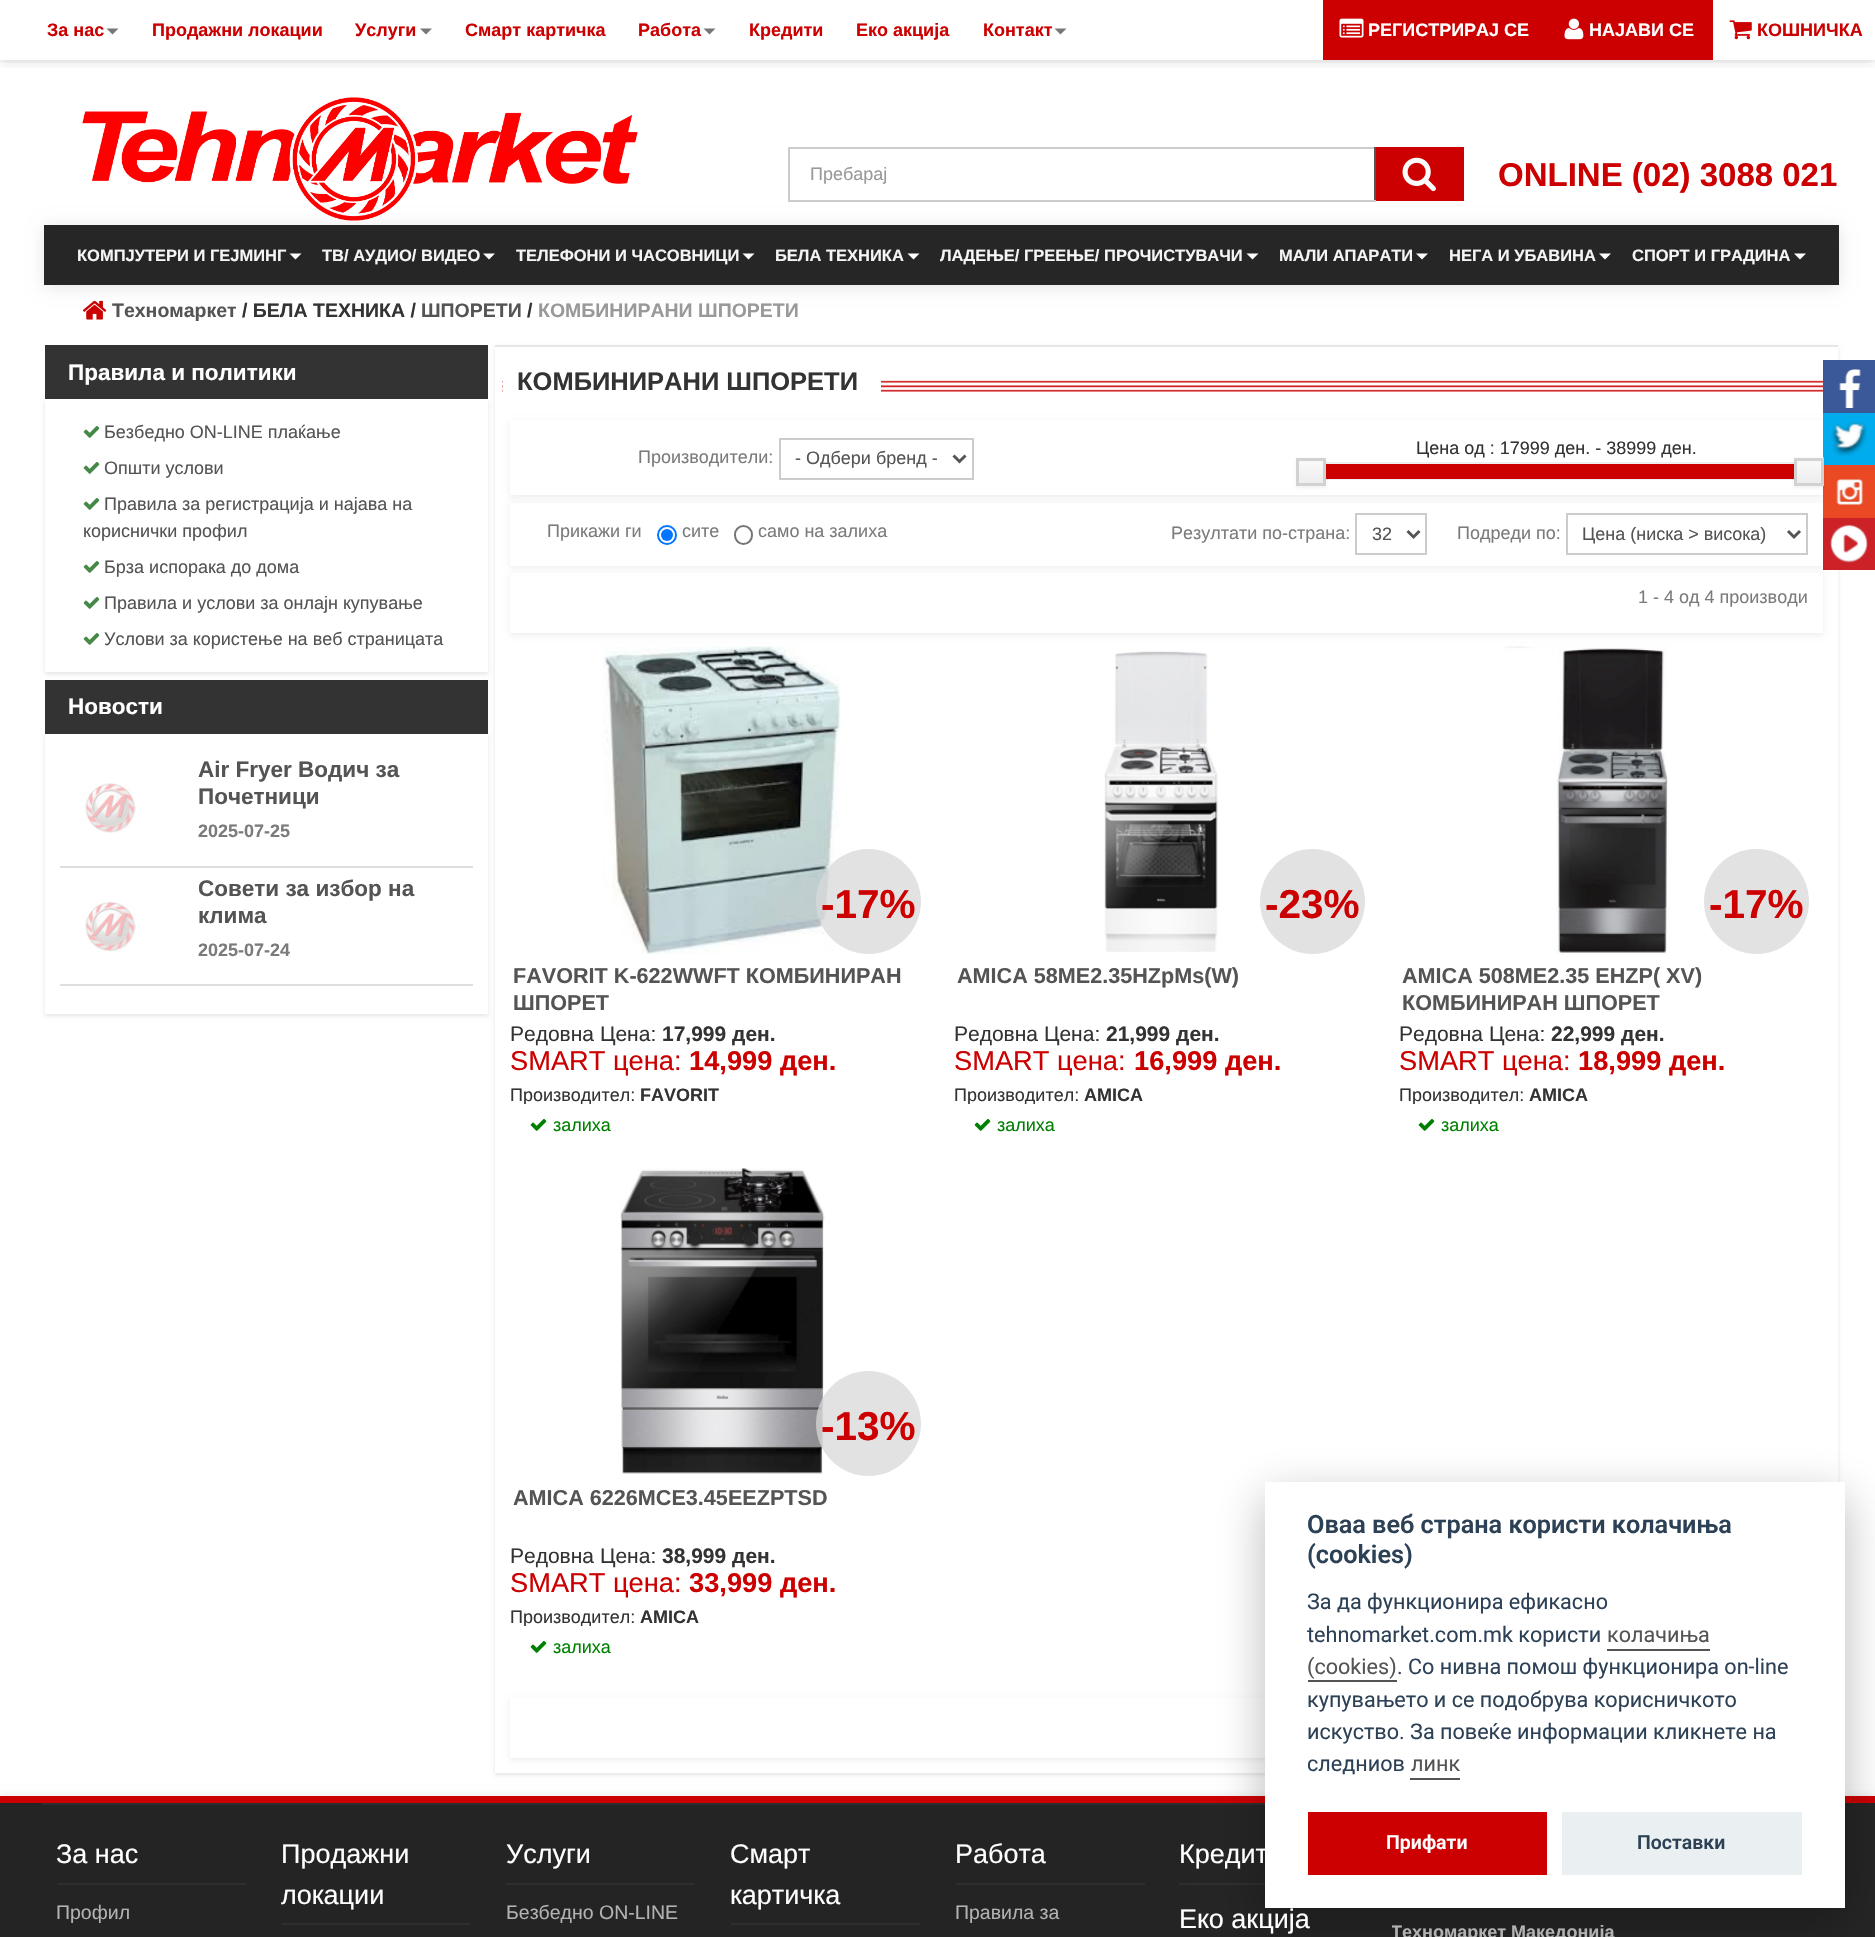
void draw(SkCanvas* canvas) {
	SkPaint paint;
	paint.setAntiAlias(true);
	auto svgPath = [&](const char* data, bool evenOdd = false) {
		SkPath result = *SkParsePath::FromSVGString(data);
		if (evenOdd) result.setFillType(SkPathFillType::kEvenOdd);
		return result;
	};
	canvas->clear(0xffffffff);
	canvas->save();
	canvas->clipRect(SkRect::MakeXYWH(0, 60, 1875, 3));
	paint.setColor(0x1a000000);
	paint.setMaskFilter(SkMaskFilter::MakeBlur(kNormal_SkBlurStyle, 4));
	canvas->drawRect(SkRect::MakeXYWH(0, 0, 1875, 60), paint);
	paint.setMaskFilter(nullptr);
	canvas->restore();
	canvas->save();
	canvas->clipRect(SkRect::MakeXYWH(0, 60, 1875, 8));
	paint.setMaskFilter(SkMaskFilter::MakeBlur(kNormal_SkBlurStyle, 7.5));
	canvas->drawRect(SkRect::MakeXYWH(0, 2, 1875, 60), paint);
	paint.setMaskFilter(nullptr);
	canvas->restore();
	SkFont f1(fontMgr->matchFamilyStyle("Liberation Sans", SkFontStyle::Bold()), 18);
	f1.setSubpixel(true);
	paint.setColor(0xffcc0000);
	canvas->drawString("За нас", 47, 36, f1, paint);
	paint.setColor(0xff777777);
	canvas->drawPath(svgPath("M106.5 28.5H118.5L112.5 34.5Z"), paint);
	paint.setColor(0xffcc0000);
	canvas->drawString("Продажни локации", 152, 36, f1, paint);
	canvas->drawString("Услуги", 355, 36, f1, paint);
	paint.setColor(0xff777777);
	canvas->drawPath(svgPath("M420 28.5H432L426 34.5Z"), paint);
	paint.setColor(0xffcc0000);
	canvas->drawString("Смарт картичка", 465, 36, f1, paint);
	canvas->drawString("Работа", 638, 36, f1, paint);
	paint.setColor(0xff777777);
	canvas->drawPath(svgPath("M703.5 28.5H715.5L709.5 34.5Z"), paint);
	paint.setColor(0xffcc0000);
	canvas->drawString("Кредити", 749, 36, f1, paint);
	canvas->drawString("Еко акција", 856, 36, f1, paint);
	canvas->drawString("Контакт", 983, 36, f1, paint);
	paint.setColor(0xff777777);
	canvas->drawPath(svgPath("M1054.5 28.5H1066.5L1060.5 34.5Z"), paint);
	paint.setColor(0xffcc0000);
	canvas->drawRect(SkRect::MakeXYWH(1323, 0, 390, 60), paint);
	canvas->drawImageRect(SkImages::DeferredFromEncodedData(SkData::MakeFromFileName("img1.png")), SkRect::MakeXYWH(1339, 18, 25, 20), SkSamplingOptions());
	paint.setColor(0xffffffff);
	canvas->drawString("РЕГИСТРИРАЈ СЕ", 1368, 36, f1, paint);
	canvas->drawImageRect(SkImages::DeferredFromEncodedData(SkData::MakeFromFileName("img2.png")), SkRect::MakeXYWH(1564, 18, 20, 22), SkSamplingOptions());
	canvas->drawString("НАЈАВИ СЕ", 1589, 36, f1, paint);
	canvas->drawImageRect(SkImages::DeferredFromEncodedData(SkData::MakeFromFileName("img3.png")), SkRect::MakeXYWH(1729, 20, 23, 20), SkSamplingOptions());
	paint.setColor(0xffcc0000);
	canvas->drawString("КОШНИЧКА", 1757, 36, f1, paint);
	canvas->drawImageRect(SkImages::DeferredFromEncodedData(SkData::MakeFromFileName("img4.png")), SkRect::MakeXYWH(82, 97, 556, 124), SkSamplingOptions());
	paint.setColor(0xffcccccc);
	canvas->drawRect(SkRect::MakeXYWH(788, 147, 588, 2), paint);
	paint.setColor(0xff555555);
	canvas->drawRect(SkRect::MakeXYWH(1374, 147, 2, 54), paint);
	paint.setColor(0xffcccccc);
	canvas->drawRect(SkRect::MakeXYWH(788, 200, 588, 2), paint);
	canvas->drawRect(SkRect::MakeXYWH(788, 147, 2, 54), paint);
	SkFont f2(fontMgr->matchFamilyStyle("Liberation Sans", SkFontStyle::Normal()), 18);
	f2.setSubpixel(true);
	paint.setColor(0xff999999);
	canvas->drawString("Пребарај", 810, 180, f2, paint);
	paint.setColor(0xffcc0000);
	canvas->drawRect(SkRect::MakeXYWH(1376, 147, 88, 54), paint);
	canvas->drawImageRect(SkImages::DeferredFromEncodedData(SkData::MakeFromFileName("img5.png")), SkRect::MakeXYWH(1402, 157, 34, 35), SkSamplingOptions());
	SkFont f3(fontMgr->matchFamilyStyle("Liberation Sans", SkFontStyle::Bold()), 33);
	f3.setSubpixel(true);
	canvas->drawString("ONLINE (02) 3088 021", 1498, 186, f3, paint);
	canvas->drawImageRect(SkImages::DeferredFromEncodedData(SkData::MakeFromFileName("img6.png")), SkRect::MakeXYWH(82, 300, 25, 20), SkSamplingOptions());
	paint.setColor(0x1a000000);
	paint.setMaskFilter(SkMaskFilter::MakeBlur(kNormal_SkBlurStyle, 7.5));
	canvas->drawRect(SkRect::MakeXYWH(44, 227, 1795, 60), paint);
	paint.setMaskFilter(nullptr);
	paint.setColor(0xff262626);
	canvas->drawRect(SkRect::MakeXYWH(44, 225, 1795, 60), paint);
	SkFont f4(fontMgr->matchFamilyStyle("Liberation Sans", SkFontStyle::Bold()), 16.5);
	f4.setSubpixel(true);
	paint.setColor(0xfff5f5f5);
	canvas->drawString("КОМПЈУТЕРИ И ГЕЈМИНГ", 77, 261, f4, paint);
	paint.setColor(0xffffffff);
	canvas->drawPath(svgPath("M289.5 253.5H301.5L295.5 259.5Z"), paint);
	paint.setColor(0xfff5f5f5);
	canvas->drawString("ТВ/ АУДИО/ ВИДЕО", 322, 261, f4, paint);
	paint.setColor(0xffffffff);
	canvas->drawPath(svgPath("M483 253.5H495L489 259.5Z"), paint);
	paint.setColor(0xfff5f5f5);
	canvas->drawString("ТЕЛЕФОНИ И ЧАСОВНИЦИ", 516, 261, f4, paint);
	paint.setColor(0xffffffff);
	canvas->drawPath(svgPath("M742.5 253.5H754.5L748.5 259.5Z"), paint);
	paint.setColor(0xfff5f5f5);
	canvas->drawString("БЕЛА ТЕХНИКА", 775, 261, f4, paint);
	paint.setColor(0xffffffff);
	canvas->drawPath(svgPath("M907.5 253.5H919.5L913.5 259.5Z"), paint);
	paint.setColor(0xfff5f5f5);
	canvas->drawString("ЛАДЕЊЕ/ ГРЕЕЊЕ/ ПРОЧИСТУВАЧИ", 940, 261, f4, paint);
	paint.setColor(0xffffffff);
	canvas->drawPath(svgPath("M1246.5 253.5H1258.5L1252.5 259.5Z"), paint);
	paint.setColor(0xfff5f5f5);
	canvas->drawString("МАЛИ АПАРАТИ", 1279, 261, f4, paint);
	paint.setColor(0xffffffff);
	canvas->drawPath(svgPath("M1416 253.5H1428L1422 259.5Z"), paint);
	paint.setColor(0xfff5f5f5);
	canvas->drawString("НЕГА И УБАВИНА", 1449, 261, f4, paint);
	paint.setColor(0xffffffff);
	canvas->drawPath(svgPath("M1599 253.5H1611L1605 259.5Z"), paint);
	paint.setColor(0xfff5f5f5);
	canvas->drawString("СПОРТ И ГРАДИНА", 1632, 261, f4, paint);
	paint.setColor(0xffffffff);
	canvas->drawPath(svgPath("M1794 253.5H1806L1800 259.5Z"), paint);
	SkFont f5(fontMgr->matchFamilyStyle("Liberation Sans", SkFontStyle::Bold()), 19.5);
	f5.setSubpixel(true);
	paint.setColor(0xff545454);
	canvas->drawString("Техномаркет", 112, 317, f5, paint);
	paint.setColor(0xff333333);
	canvas->drawString("/ БЕЛА ТЕХНИКА /", 242, 317, f5, paint);
	paint.setColor(0xff545454);
	canvas->drawString("ШПОРЕТИ", 421, 317, f5, paint);
	paint.setColor(0xff333333);
	canvas->drawString("/", 527, 317, f5, paint);
	paint.setColor(0xff999999);
	canvas->drawString("КОМБИНИРАНИ ШПОРЕТИ", 538, 317, f5, paint);
	canvas->save();
	canvas->clipPath(svgPath("M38 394H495V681H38ZM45 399H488V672H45Z", true), true);
	paint.setColor(0x1a000000);
	paint.setMaskFilter(SkMaskFilter::MakeBlur(kNormal_SkBlurStyle, 2));
	canvas->drawRect(SkRect::MakeXYWH(45, 401, 443, 273), paint);
	paint.setMaskFilter(nullptr);
	canvas->restore();
	paint.setColor(0xff333333);
	canvas->drawRect(SkRect::MakeXYWH(45, 345, 443, 54), paint);
	SkFont f6(fontMgr->matchFamilyStyle("Liberation Sans", SkFontStyle::Bold()), 22.5);
	f6.setSubpixel(true);
	paint.setColor(0xffffffff);
	canvas->drawString("Правила и политики", 68, 380, f6, paint);
	canvas->drawImageRect(SkImages::DeferredFromEncodedData(SkData::MakeFromFileName("img7.png")), SkRect::MakeXYWH(83, 426, 17, 12), SkSamplingOptions());
	paint.setColor(0xff545454);
	canvas->drawString("Безбедно ON-LINE плаќање", 104, 438, f2, paint);
	canvas->drawImageRect(SkImages::DeferredFromEncodedData(SkData::MakeFromFileName("img7.png")), SkRect::MakeXYWH(83, 462, 17, 12), SkSamplingOptions());
	canvas->drawString("Општи услови", 104, 474, f2, paint);
	canvas->drawImageRect(SkImages::DeferredFromEncodedData(SkData::MakeFromFileName("img7.png")), SkRect::MakeXYWH(83, 498, 17, 12), SkSamplingOptions());
	canvas->drawString("Правила за регистрација и најава на", 104, 510, f2, paint);
	canvas->drawString("кориснички профил", 83, 537, f2, paint);
	canvas->drawImageRect(SkImages::DeferredFromEncodedData(SkData::MakeFromFileName("img7.png")), SkRect::MakeXYWH(83, 561, 17, 12), SkSamplingOptions());
	canvas->drawString("Брза испорака до дома", 104, 573, f2, paint);
	canvas->drawImageRect(SkImages::DeferredFromEncodedData(SkData::MakeFromFileName("img7.png")), SkRect::MakeXYWH(83, 597, 17, 12), SkSamplingOptions());
	canvas->drawString("Правила и услови за онлајн купување", 104, 609, f2, paint);
	canvas->drawImageRect(SkImages::DeferredFromEncodedData(SkData::MakeFromFileName("img7.png")), SkRect::MakeXYWH(83, 633, 17, 12), SkSamplingOptions());
	canvas->drawString("Услови за користење на веб страницата", 104, 645, f2, paint);
	canvas->save();
	canvas->clipPath(svgPath("M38 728H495V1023H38ZM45 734H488V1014H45Z", true), true);
	paint.setColor(0x1a000000);
	paint.setMaskFilter(SkMaskFilter::MakeBlur(kNormal_SkBlurStyle, 2));
	canvas->drawRect(SkRect::MakeXYWH(45, 735, 443, 281), paint);
	paint.setMaskFilter(nullptr);
	canvas->restore();
	paint.setColor(0xff333333);
	canvas->drawRect(SkRect::MakeXYWH(45, 680, 443, 54), paint);
	paint.setColor(0xffffffff);
	canvas->drawString("Новости", 68, 714, f6, paint);
	paint.setColor(0xffdedede);
	canvas->drawRect(SkRect::MakeXYWH(60, 866, 413, 2), paint);
	canvas->drawImageRect(SkImages::DeferredFromEncodedData(SkData::MakeFromFileName("img8.png")), SkRect::MakeXYWH(85, 783, 51, 50), SkSamplingOptions());
	paint.setColor(0xff545454);
	canvas->drawString("Air Fryer Водич за", 198, 777, f6, paint);
	canvas->drawString("Почетници", 198, 804, f6, paint);
	paint.setColor(0xff7b7b7b);
	canvas->drawString("2025-07-25", 198, 837, f1, paint);
	paint.setColor(0xffdedede);
	canvas->drawRect(SkRect::MakeXYWH(60, 984, 413, 2), paint);
	canvas->drawImageRect(SkImages::DeferredFromEncodedData(SkData::MakeFromFileName("img9.png")), SkRect::MakeXYWH(85, 902, 51, 50), SkSamplingOptions());
	paint.setColor(0xff545454);
	canvas->drawString("Совети за избор на", 198, 896, f6, paint);
	canvas->drawString("клима", 198, 923, f6, paint);
	paint.setColor(0xff7b7b7b);
	canvas->drawString("2025-07-24", 198, 956, f1, paint);
	paint.setColor(0x1a000000);
	paint.setMaskFilter(SkMaskFilter::MakeBlur(kNormal_SkBlurStyle, 2));
	canvas->drawRect(SkRect::MakeXYWH(495, 347, 1343, 1428), paint);
	paint.setMaskFilter(nullptr);
	paint.setColor(0xffffffff);
	canvas->drawRect(SkRect::MakeXYWH(495, 347, 1343, 1426), paint);
	paint.setColor(0xffe6e6e6);
	canvas->drawRect(SkRect::MakeXYWH(495, 345, 1343, 2), paint);
	canvas->drawImageRect(SkImages::DeferredFromEncodedData(SkData::MakeFromFileName("img10.png")), SkRect::MakeXYWH(502, 380, 1321, 12), SkSamplingOptions());
	paint.setColor(0xffffffff);
	canvas->drawRect(SkRect::MakeXYWH(503, 380, 378, 12), paint);
	SkFont f7(fontMgr->matchFamilyStyle("Liberation Sans", SkFontStyle::Bold()), 25.5);
	f7.setSubpixel(true);
	paint.setColor(0xff333333);
	canvas->drawString("КОМБИНИРАНИ ШПОРЕТИ", 517, 390, f7, paint);
	canvas->save();
	canvas->clipPath(svgPath("M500 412H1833V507H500ZM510 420H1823V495H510Z", true), true);
	paint.setColor(0x12000000);
	paint.setMaskFilter(SkMaskFilter::MakeBlur(kNormal_SkBlurStyle, 3));
	canvas->drawRect(SkRect::MakeXYWH(510, 422, 1313, 75), paint);
	paint.setMaskFilter(nullptr);
	canvas->restore();
	paint.setColor(0xff7b7b7b);
	canvas->drawString("Производители:", 638, 463, f2, paint);
	paint.setStroke(true);
	paint.setStrokeWidth(2);
	paint.setColor(0xffcccccc);
	canvas->drawRect(SkRect::MakeXYWH(780, 439, 193, 40), paint);
	paint.setStrokeWidth(3);
	paint.setColor(0xff555555);
	canvas->drawPath(svgPath("M953.5 455.5L959.5 461.5L965.5 455.5"), paint);
	paint.setStroke(false);
	paint.setColor(0xff545454);
	canvas->drawString("- Одбери бренд -", 795, 464, f2, paint);
	paint.setColor(0xff333333);
	canvas->drawString("Цена од : 17999 ден. - 38999 ден.", 1416, 454, f2, paint);
	paint.setStroke(true);
	paint.setStrokeWidth(2);
	paint.setColor(0xffeeeeee);
	canvas->drawRect(SkRect::MakeXYWH(1308, 463, 499, 16), paint);
	paint.setStroke(false);
	paint.setColor(0xffcc0000);
	canvas->drawRect(SkRect::MakeXYWH(1326, 464, 468, 15), paint);
	paint.setColor(0x0d000000);
	paint.setMaskFilter(SkMaskFilter::MakeBlur(kNormal_SkBlurStyle, 1.5));
	canvas->drawRect(SkRect::MakeXYWH(1296, 459, 30, 29), paint);
	paint.setMaskFilter(nullptr);
	canvas->drawImageRect(SkImages::DeferredFromEncodedData(SkData::MakeFromFileName("img11.png")), SkRect::MakeXYWH(1299, 461, 24, 22), SkSamplingOptions());
	paint.setStroke(true);
	paint.setStrokeWidth(3);
	paint.setColor(0xffd2d2d2);
	canvas->drawRect(SkRect::MakeXYWH(1297.5, 459.5, 27, 25), paint);
	paint.setStroke(false);
	paint.setColor(0xff00aced);
	canvas->drawRect(SkRect::MakeXYWH(1823, 413, 52, 52), paint);
	canvas->save();
	canvas->clipPath(svgPath("M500 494H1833V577H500ZM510 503H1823V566H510Z", true), true);
	paint.setColor(0x12000000);
	paint.setMaskFilter(SkMaskFilter::MakeBlur(kNormal_SkBlurStyle, 3));
	canvas->drawRect(SkRect::MakeXYWH(510, 504, 1313, 63), paint);
	paint.setMaskFilter(nullptr);
	canvas->restore();
	paint.setColor(0xffeb4924);
	canvas->drawRect(SkRect::MakeXYWH(1823, 465, 52, 53), paint);
	paint.setColor(0x0d000000);
	paint.setMaskFilter(SkMaskFilter::MakeBlur(kNormal_SkBlurStyle, 1.5));
	canvas->drawRect(SkRect::MakeXYWH(1794, 459, 30, 29), paint);
	paint.setMaskFilter(nullptr);
	canvas->drawImageRect(SkImages::DeferredFromEncodedData(SkData::MakeFromFileName("img12.png")), SkRect::MakeXYWH(1794, 457, 30, 26), SkSamplingOptions());
	paint.setStroke(true);
	paint.setColor(0xffd2d2d2);
	canvas->drawRect(SkRect::MakeXYWH(1795.5, 459.5, 27, 25), paint);
	paint.setStroke(false);
	paint.setColor(0xff7b7b7b);
	canvas->drawString("Прикажи ги", 547, 537, f2, paint);
	paint.setStroke(true);
	paint.setStrokeWidth(2);
	paint.setColor(0xff0075ff);
	canvas->drawCircle(667, 535, 9, paint);
	paint.setStroke(false);
	canvas->drawCircle(667, 535, 6, paint);
	paint.setColor(0xff7b7b7b);
	canvas->drawString("сите", 682, 537, f2, paint);
	paint.setStroke(true);
	paint.setColor(0xff767676);
	canvas->drawRoundRect(SkRect::MakeXYWH(735, 526, 17, 18), 8.5, 8.5, paint);
	paint.setStroke(false);
	paint.setColor(0xff7b7b7b);
	canvas->drawString("само на залиха", 758, 537, f2, paint);
	canvas->drawString("Резултати по-страна:", 1171, 539, f2, paint);
	paint.setStroke(true);
	paint.setColor(0xffcccccc);
	canvas->drawRect(SkRect::MakeXYWH(1356, 514, 70, 40), paint);
	paint.setStrokeWidth(3);
	paint.setColor(0xff555555);
	canvas->drawPath(svgPath("M1407.5 531L1413.5 537L1419.5 531"), paint);
	paint.setStroke(false);
	paint.setColor(0xff545454);
	canvas->drawString("32", 1372, 540, f2, paint);
	paint.setColor(0xff7b7b7b);
	canvas->drawString("Подреди по:", 1457, 539, f2, paint);
	paint.setStroke(true);
	paint.setStrokeWidth(2);
	paint.setColor(0xffcccccc);
	canvas->drawRect(SkRect::MakeXYWH(1567, 514, 240, 40), paint);
	paint.setStrokeWidth(3);
	paint.setColor(0xff555555);
	canvas->drawPath(svgPath("M1788 531L1794 537L1800 531"), paint);
	paint.setStroke(false);
	paint.setColor(0xff545454);
	canvas->drawString("Цена (ниска > висока)", 1582, 540, f2, paint);
	canvas->save();
	canvas->clipPath(svgPath("M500 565H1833V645H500ZM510 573H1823V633H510Z", true), true);
	paint.setColor(0x12000000);
	paint.setMaskFilter(SkMaskFilter::MakeBlur(kNormal_SkBlurStyle, 3));
	canvas->drawRect(SkRect::MakeXYWH(510, 575, 1313, 60), paint);
	paint.setMaskFilter(nullptr);
	canvas->restore();
	paint.setColor(0xff7b7b7b);
	canvas->drawString("1 - 4 од 4 производи", 1638, 603, f2, paint);
	canvas->drawImageRect(SkImages::DeferredFromEncodedData(SkData::MakeFromFileName("img13.png")), SkRect::MakeXYWH(603, 646, 237, 308), SkSamplingOptions());
	paint.setColor(0xbfd8d8d8);
	canvas->drawCircle(868.5, 901.5, 52.5, paint);
	SkFont f8(fontMgr->matchFamilyStyle("Liberation Sans", SkFontStyle::Bold()), 40.5);
	f8.setSubpixel(true);
	paint.setColor(0xffcc0000);
	canvas->drawString("-17%", 821, 918, f8, paint);
	SkFont f9(fontMgr->matchFamilyStyle("Liberation Sans", SkFontStyle::Bold()), 21.6);
	f9.setSubpixel(true);
	paint.setColor(0xff545454);
	canvas->drawString("FAVORIT K-622WWFT КОМБИНИРАН", 513, 983, f9, paint);
	canvas->drawString("ШПОРЕТ", 513, 1010, f9, paint);
	SkFont f10(fontMgr->matchFamilyStyle("Liberation Sans", SkFontStyle::Normal()), 21);
	f10.setSubpixel(true);
	paint.setColor(0xff333333);
	canvas->drawString("Редовна Цена:", 510, 1041, f10, paint);
	SkFont f11(fontMgr->matchFamilyStyle("Liberation Sans", SkFontStyle::Bold()), 21);
	f11.setSubpixel(true);
	canvas->drawString("17,999 ден.", 662, 1041, f11, paint);
	SkFont f12(fontMgr->matchFamilyStyle("Liberation Sans", SkFontStyle::Normal()), 27.25);
	f12.setSubpixel(true);
	paint.setColor(0xffcc0000);
	canvas->drawString("SMART цена:", 510, 1070, f12, paint);
	SkFont f13(fontMgr->matchFamilyStyle("Liberation Sans", SkFontStyle::Bold()), 27.25);
	f13.setSubpixel(true);
	canvas->drawString("14,999 ден.", 689, 1070, f13, paint);
	canvas->save();
	canvas->clipRect(SkRect::MakeXYWH(510, 1082, 327, 22));
	paint.setColor(0xff333333);
	canvas->drawString("Производител:", 510, 1101, f2, paint);
	canvas->restore();
	canvas->drawString("FAVORIT", 640, 1101, f1, paint);
	canvas->drawImageRect(SkImages::DeferredFromEncodedData(SkData::MakeFromFileName("img14.png")), SkRect::MakeXYWH(530, 1119, 17, 12), SkSamplingOptions());
	paint.setColor(0xff008000);
	canvas->drawString("залиха", 553, 1131, f2, paint);
	canvas->drawImageRect(SkImages::DeferredFromEncodedData(SkData::MakeFromFileName("img15.png")), SkRect::MakeXYWH(1104, 651, 114, 301), SkSamplingOptions());
	paint.setColor(0xffe2e2e2);
	canvas->drawCircle(1312.5, 901.5, 52.5, paint);
	paint.setColor(0xffcc0000);
	canvas->drawString("-23%", 1265, 918, f8, paint);
	paint.setColor(0xff545454);
	canvas->drawString("AMICA 58ME2.35HZpMs(W)", 957, 983, f9, paint);
	paint.setColor(0xff333333);
	canvas->drawString("Редовна Цена:", 954, 1041, f10, paint);
	canvas->drawString("21,999 ден.", 1106, 1041, f11, paint);
	paint.setColor(0xffcc0000);
	canvas->drawString("SMART цена:", 954, 1070, f12, paint);
	canvas->drawString("16,999 ден.", 1134, 1070, f13, paint);
	canvas->save();
	canvas->clipRect(SkRect::MakeXYWH(954, 1082, 327, 22));
	paint.setColor(0xff333333);
	canvas->drawString("Производител:", 954, 1101, f2, paint);
	canvas->restore();
	canvas->drawString("AMICA", 1084, 1101, f1, paint);
	canvas->drawImageRect(SkImages::DeferredFromEncodedData(SkData::MakeFromFileName("img14.png")), SkRect::MakeXYWH(974, 1119, 17, 12), SkSamplingOptions());
	paint.setColor(0xff008000);
	canvas->drawString("залиха", 997, 1131, f2, paint);
	canvas->drawImageRect(SkImages::DeferredFromEncodedData(SkData::MakeFromFileName("img16.png")), SkRect::MakeXYWH(1504, 646, 165, 308), SkSamplingOptions());
	paint.setColor(0xffe2e2e2);
	canvas->drawCircle(1756.5, 901.5, 52.5, paint);
	paint.setColor(0xffcc0000);
	canvas->drawString("-17%", 1709, 918, f8, paint);
	paint.setColor(0xff545454);
	canvas->drawString("AMICA 508ME2.35 EHZP( XV)", 1402, 983, f9, paint);
	canvas->drawString("КОМБИНИРАН ШПОРЕТ", 1402, 1010, f9, paint);
	paint.setColor(0xff333333);
	canvas->drawString("Редовна Цена:", 1399, 1041, f10, paint);
	canvas->drawString("22,999 ден.", 1551, 1041, f11, paint);
	paint.setColor(0xffcc0000);
	canvas->drawString("SMART цена:", 1399, 1070, f12, paint);
	canvas->drawString("18,999 ден.", 1578, 1070, f13, paint);
	canvas->save();
	canvas->clipRect(SkRect::MakeXYWH(1398, 1082, 327, 22));
	paint.setColor(0xff333333);
	canvas->drawString("Производител:", 1399, 1101, f2, paint);
	canvas->restore();
	canvas->drawString("AMICA", 1529, 1101, f1, paint);
	canvas->drawImageRect(SkImages::DeferredFromEncodedData(SkData::MakeFromFileName("img14.png")), SkRect::MakeXYWH(1418, 1119, 17, 12), SkSamplingOptions());
	paint.setColor(0xff008000);
	canvas->drawString("залиха", 1441, 1131, f2, paint);
	canvas->drawImageRect(SkImages::DeferredFromEncodedData(SkData::MakeFromFileName("img17.png")), SkRect::MakeXYWH(620, 1168, 205, 306), SkSamplingOptions());
	paint.setColor(0xbfd8d8d8);
	canvas->drawCircle(868.5, 1423.5, 52.5, paint);
	paint.setColor(0xffcc0000);
	canvas->drawString("-13%", 821, 1440, f8, paint);
	paint.setColor(0xff545454);
	canvas->drawString("AMICA 6226MCE3.45EEZPTSD", 513, 1505, f9, paint);
	paint.setColor(0xff333333);
	canvas->drawString("Редовна Цена:", 510, 1563, f10, paint);
	canvas->drawString("38,999 ден.", 662, 1563, f11, paint);
	paint.setColor(0xffcc0000);
	canvas->drawString("SMART цена:", 510, 1592, f12, paint);
	canvas->drawString("33,999 ден.", 689, 1592, f13, paint);
	canvas->save();
	canvas->clipRect(SkRect::MakeXYWH(510, 1604, 327, 22));
	paint.setColor(0xff333333);
	canvas->drawString("Производител:", 510, 1623, f2, paint);
	canvas->restore();
	canvas->drawString("AMICA", 640, 1623, f1, paint);
	canvas->drawImageRect(SkImages::DeferredFromEncodedData(SkData::MakeFromFileName("img14.png")), SkRect::MakeXYWH(530, 1641, 17, 12), SkSamplingOptions());
	paint.setColor(0xff008000);
	canvas->drawString("залиха", 553, 1653, f2, paint);
	canvas->save();
	canvas->clipPath(svgPath("M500 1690H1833V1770H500ZM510 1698H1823V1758H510Z", true), true);
	paint.setColor(0x12000000);
	paint.setMaskFilter(SkMaskFilter::MakeBlur(kNormal_SkBlurStyle, 3));
	canvas->drawRect(SkRect::MakeXYWH(510, 1700, 1313, 60), paint);
	paint.setMaskFilter(nullptr);
	canvas->restore();
	paint.setColor(0xff3b5998);
	canvas->drawRect(SkRect::MakeXYWH(1823, 360, 52, 53), paint);
	canvas->drawImageRect(SkImages::DeferredFromEncodedData(SkData::MakeFromFileName("img18.png")), SkRect::MakeXYWH(1839, 369, 22, 39), SkSamplingOptions());
	canvas->drawImageRect(SkImages::DeferredFromEncodedData(SkData::MakeFromFileName("img19.png")), SkRect::MakeXYWH(1831, 422, 36, 34), SkSamplingOptions());
	canvas->drawImageRect(SkImages::DeferredFromEncodedData(SkData::MakeFromFileName("img20.png")), SkRect::MakeXYWH(1836, 479, 27, 26), SkSamplingOptions());
	paint.setColor(0xffcc2127);
	canvas->drawRect(SkRect::MakeXYWH(1823, 518, 52, 52), paint);
	canvas->drawImageRect(SkImages::DeferredFromEncodedData(SkData::MakeFromFileName("img21.png")), SkRect::MakeXYWH(1830, 524, 38, 39), SkSamplingOptions());
	paint.setColor(0x1a000000);
	paint.setMaskFilter(SkMaskFilter::MakeBlur(kNormal_SkBlurStyle, 4));
	canvas->drawRect(SkRect::MakeXYWH(0, 1796, 1875, 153), paint);
	paint.setMaskFilter(nullptr);
	paint.setColor(0xff242424);
	canvas->drawRect(SkRect::MakeXYWH(0, 1803, 1875, 134), paint);
	paint.setColor(0xffcc0000);
	canvas->drawRect(SkRect::MakeXYWH(0, 1796, 1875, 7), paint);
	paint.setColor(0xff2e2e2e);
	canvas->drawRect(SkRect::MakeXYWH(42, 1803, 1223, 2), paint);
	canvas->drawRect(SkRect::MakeXYWH(1179, 1883, 86, 2), paint);
	paint.setColor(0x47020203);
	paint.setMaskFilter(SkMaskFilter::MakeBlur(kNormal_SkBlurStyle, 22.5));
	canvas->drawRect(SkRect::MakeXYWH(1265, 1497, 580, 426), paint);
	paint.setMaskFilter(nullptr);
	paint.setColor(0xffffffff);
	canvas->drawRect(SkRect::MakeXYWH(1265, 1482, 580, 426), paint);
	SkFont f14(fontMgr->matchFamilyStyle("Roboto", SkFontStyle(600, SkFontStyle::kNormal_Width, SkFontStyle::kUpright_Slant)), 25.25);
	f14.setSubpixel(true);
	paint.setColor(0xff2d4156);
	canvas->drawString("Оваа веб страна користи колачиња", 1307, 1533, f14, paint);
	canvas->drawString("(cookies)", 1307, 1563, f14, paint);
	SkFont f15(fontMgr->matchFamilyStyle("Roboto", SkFontStyle::Normal()), 21.6);
	f15.setSubpixel(true);
	canvas->drawString("За да функционира ефикасно", 1307, 1609, f15, paint);
	canvas->drawString("tehnomarket.com.mk користи", 1307, 1642, f15, paint);
	paint.setColor(0xff545454);
	canvas->drawString("колачиња", 1607, 1642, f15, paint);
	canvas->drawRect(SkRect::MakeXYWH(1607, 1649, 103, 2), paint);
	canvas->drawString("(cookies)", 1307, 1674, f15, paint);
	canvas->drawRect(SkRect::MakeXYWH(1308, 1680, 89, 2), paint);
	paint.setColor(0xff2d4156);
	canvas->drawString(". Со нивна помош функционира on-line", 1397, 1674, f15, paint);
	canvas->drawString("купувањето и се подобрува корисничкото", 1307, 1707, f15, paint);
	canvas->drawString("искуство. За повеќе информации кликнете на", 1307, 1739, f15, paint);
	canvas->drawString("следниов", 1307, 1771, f15, paint);
	paint.setColor(0xff545454);
	canvas->drawString("линк", 1411, 1771, f15, paint);
	canvas->drawRect(SkRect::MakeXYWH(1410, 1778, 50, 2), paint);
	paint.setColor(0xffcc0000);
	canvas->drawRect(SkRect::MakeXYWH(1308, 1812, 239, 63), paint);
	SkFont f16(fontMgr->matchFamilyStyle("Roboto", SkFontStyle(600, SkFontStyle::kNormal_Width, SkFontStyle::kUpright_Slant)), 19.5);
	f16.setSubpixel(true);
	paint.setColor(0xffffffff);
	canvas->drawString("Прифати", 1386, 1849, f16, paint);
	paint.setColor(0xffeaeff2);
	canvas->drawRect(SkRect::MakeXYWH(1562, 1812, 240, 63), paint);
	paint.setColor(0xff2d4156);
	canvas->drawString("Поставки", 1637, 1849, f16, paint);
	paint.setColor(0xff2e2e2e);
	canvas->drawRect(SkRect::MakeXYWH(57, 1883, 189, 2), paint);
	SkFont f17(fontMgr->matchFamilyStyle("Liberation Sans", SkFontStyle::Normal()), 27);
	f17.setSubpixel(true);
	paint.setColor(0xffffffff);
	canvas->drawString("За нас", 56, 1863, f17, paint);
	SkFont f18(fontMgr->matchFamilyStyle("Liberation Sans", SkFontStyle::Normal()), 19.5);
	f18.setSubpixel(true);
	paint.setColor(0xffb2b2b2);
	canvas->drawString("Профил", 56, 1919, f18, paint);
	paint.setColor(0xff2e2e2e);
	canvas->drawRect(SkRect::MakeXYWH(281, 1923, 189, 2), paint);
	paint.setColor(0xffffffff);
	canvas->drawString("Продажни", 281, 1863, f17, paint);
	canvas->drawString("локации", 281, 1904, f17, paint);
	paint.setColor(0xff2e2e2e);
	canvas->drawRect(SkRect::MakeXYWH(506, 1883, 189, 2), paint);
	paint.setColor(0xffffffff);
	canvas->drawString("Услуги", 506, 1863, f17, paint);
	paint.setColor(0xffb2b2b2);
	canvas->drawString("Безбедно ON-LINE", 506, 1919, f18, paint);
	paint.setColor(0xff2e2e2e);
	canvas->drawRect(SkRect::MakeXYWH(731, 1923, 189, 2), paint);
	paint.setColor(0xffffffff);
	canvas->drawString("Смарт", 730, 1863, f17, paint);
	canvas->drawString("картичка", 730, 1904, f17, paint);
	paint.setColor(0xff2e2e2e);
	canvas->drawRect(SkRect::MakeXYWH(956, 1883, 189, 2), paint);
	paint.setColor(0xffffffff);
	canvas->drawString("Работа", 955, 1863, f17, paint);
	paint.setColor(0xffb2b2b2);
	canvas->drawString("Правила за", 955, 1919, f18, paint);
	paint.setColor(0xffffffff);
	canvas->drawString("Кредит", 1179, 1863, f17, paint);
	canvas->drawString("Еко акција", 1179, 1928, f17, paint);
	canvas->save();
	canvas->clipRect(SkRect::MakeXYWH(1392, 1803, 441, 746));
	paint.setColor(0xffb2b2b2);
	canvas->drawString("Техномаркет Македонија", 1391, 1938, f1, paint);
	canvas->restore();
}
